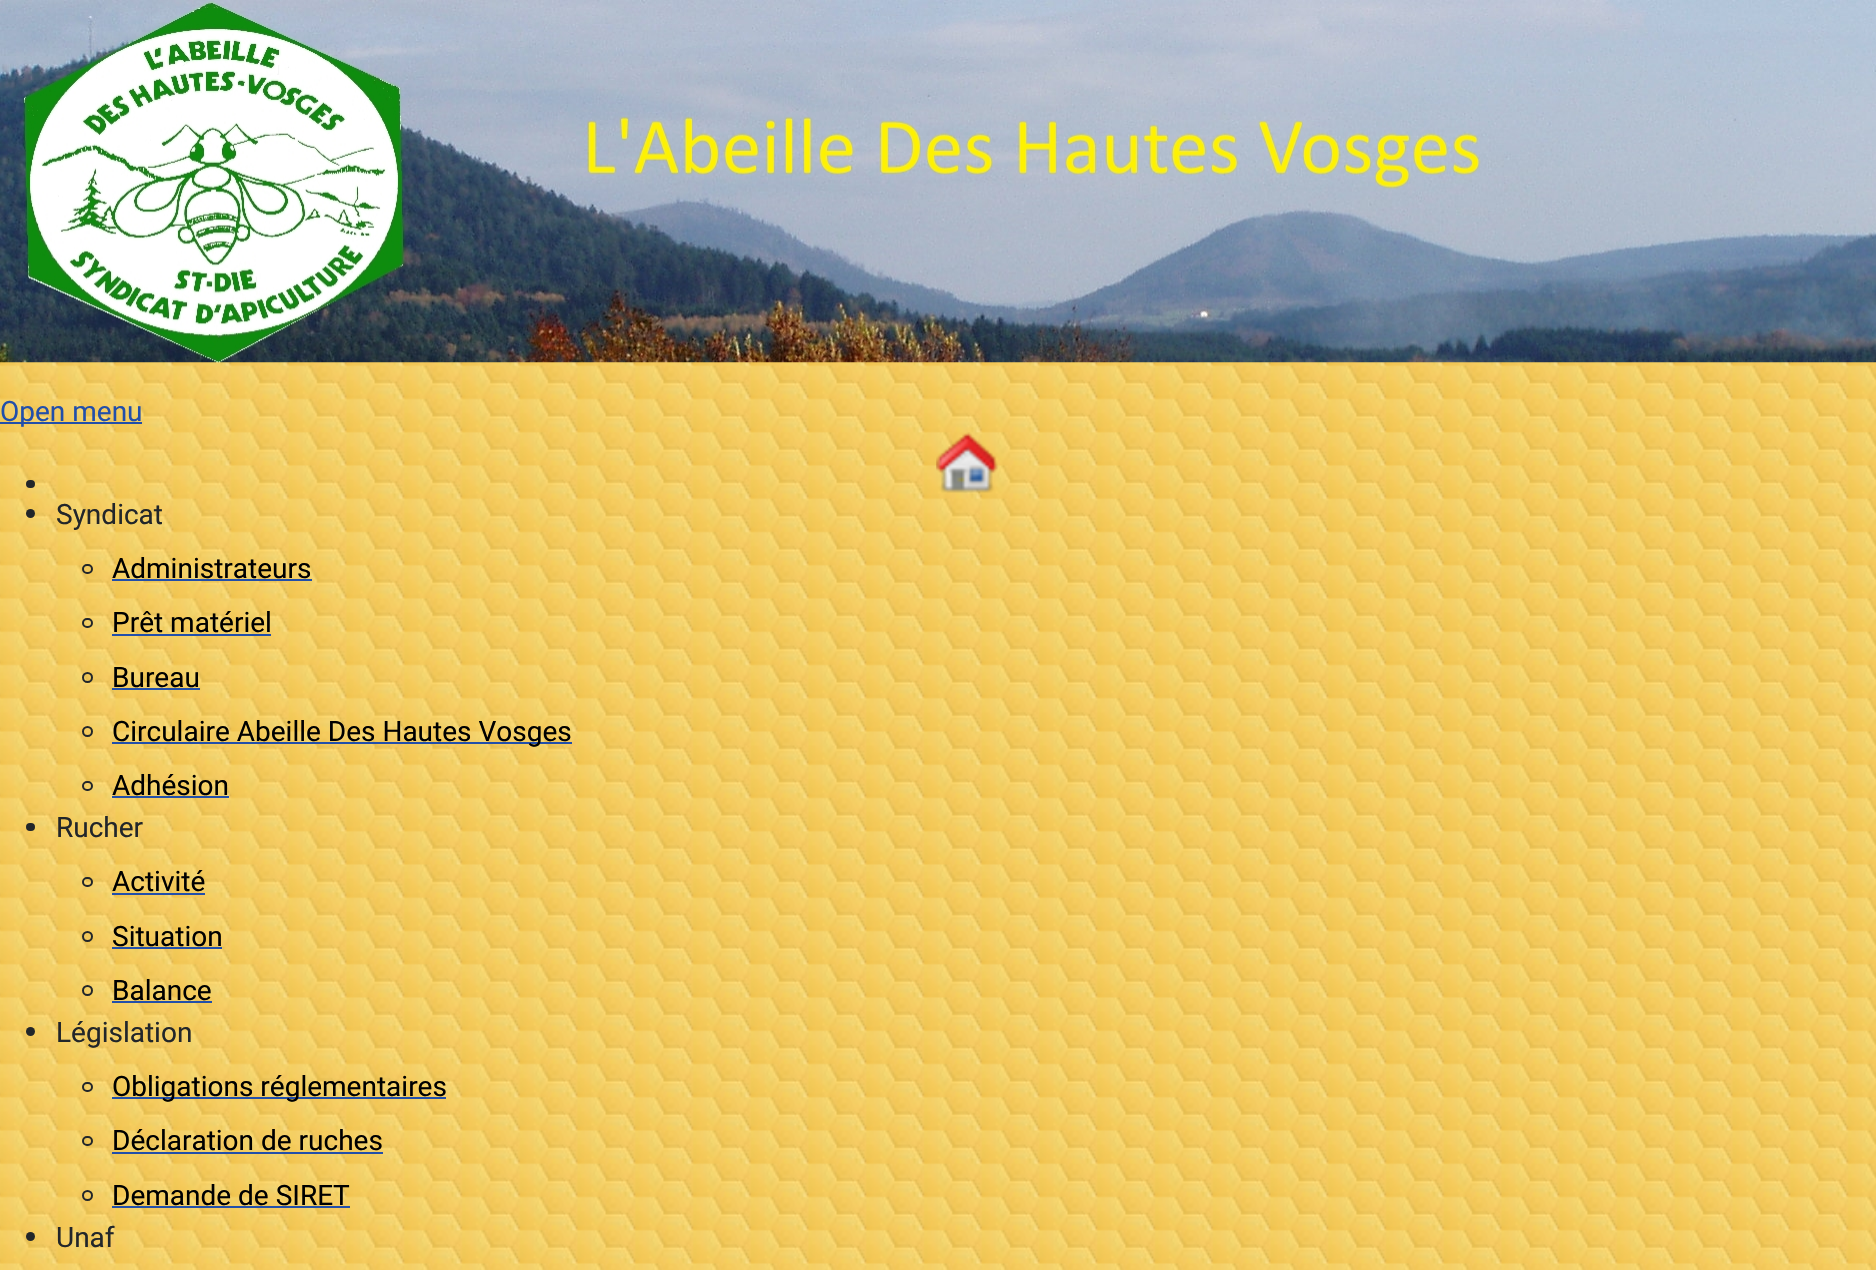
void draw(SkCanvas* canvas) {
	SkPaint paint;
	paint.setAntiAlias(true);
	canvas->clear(0xffffffff);
	canvas->drawImageRect(SkImages::DeferredFromEncodedData(SkData::MakeFromFileName("img1.png")), SkRect::MakeXYWH(0, 362, 1876, 908), SkSamplingOptions());
	canvas->drawImageRect(SkImages::DeferredFromEncodedData(SkData::MakeFromFileName("img2.png")), SkRect::MakeXYWH(0, 0, 1876, 363), SkSamplingOptions());
	paint.setColor(0xff224faa);
	canvas->drawRect(SkRect::MakeXYWH(0, 422, 142, 2), paint);
	SkFont f1(fontMgr->matchFamilyStyle("Roboto", SkFontStyle::Normal()), 28);
	f1.setSubpixel(true);
	canvas->drawString("Open menu", 0, 421, f1, paint);
	paint.setColor(0xff22262a);
	canvas->drawRoundRect(SkRect::MakeXYWH(26, 480, 9, 8), 4, 4, paint);
	canvas->drawImageRect(SkImages::DeferredFromEncodedData(SkData::MakeFromFileName("img3.png")), SkRect::MakeXYWH(936, 432, 62, 61), SkSamplingOptions());
	canvas->drawCircle(30.5, 513.5, 4.5, paint);
	canvas->drawString("Syndicat", 56, 524, f1, paint);
	paint.setStroke(true);
	paint.setStrokeWidth(2);
	canvas->drawRoundRect(SkRect::MakeXYWH(83, 565, 9, 8), 4, 4, paint);
	paint.setStroke(false);
	paint.setColor(0xff000000);
	canvas->drawString("Administrateurs", 112, 578, f1, paint);
	paint.setColor(0xff224faa);
	canvas->drawRect(SkRect::MakeXYWH(112, 579, 200, 2), paint);
	paint.setStroke(true);
	paint.setColor(0xff22262a);
	canvas->drawRoundRect(SkRect::MakeXYWH(83, 619, 9, 8), 4, 4, paint);
	paint.setStroke(false);
	paint.setColor(0xff000000);
	canvas->drawString("Prêt matériel", 112, 632, f1, paint);
	paint.setColor(0xff224faa);
	canvas->drawRect(SkRect::MakeXYWH(112, 634, 159, 2), paint);
	paint.setStroke(true);
	paint.setColor(0xff22262a);
	canvas->drawCircle(87.5, 677.5, 4.5, paint);
	paint.setStroke(false);
	paint.setColor(0xff000000);
	canvas->drawString("Bureau", 112, 687, f1, paint);
	paint.setColor(0xff224faa);
	canvas->drawRect(SkRect::MakeXYWH(112, 688, 88, 2), paint);
	paint.setStroke(true);
	paint.setColor(0xff22262a);
	canvas->drawCircle(87.5, 731.5, 4.5, paint);
	paint.setStroke(false);
	paint.setColor(0xff224faa);
	canvas->drawRect(SkRect::MakeXYWH(112, 742, 460, 2), paint);
	paint.setColor(0xff000000);
	canvas->drawString("Circulaire Abeille Des Hautes Vosges", 112, 741, f1, paint);
	paint.setStroke(true);
	paint.setColor(0xff22262a);
	canvas->drawRoundRect(SkRect::MakeXYWH(83, 782, 9, 8), 4, 4, paint);
	paint.setStroke(false);
	paint.setColor(0xff000000);
	canvas->drawString("Adhésion", 112, 795, f1, paint);
	paint.setColor(0xff224faa);
	canvas->drawRect(SkRect::MakeXYWH(112, 796, 117, 2), paint);
	paint.setColor(0xff22262a);
	canvas->drawRoundRect(SkRect::MakeXYWH(26, 823, 9, 8), 4, 4, paint);
	canvas->drawString("Rucher", 56, 837, f1, paint);
	paint.setStroke(true);
	canvas->drawRoundRect(SkRect::MakeXYWH(83, 878, 9, 8), 4, 4, paint);
	paint.setStroke(false);
	paint.setColor(0xff000000);
	canvas->drawString("Activité", 112, 891, f1, paint);
	paint.setColor(0xff224faa);
	canvas->drawRect(SkRect::MakeXYWH(112, 893, 93, 2), paint);
	paint.setStroke(true);
	paint.setColor(0xff22262a);
	canvas->drawCircle(87.5, 936.5, 4.5, paint);
	paint.setStroke(false);
	paint.setColor(0xff000000);
	canvas->drawString("Situation", 112, 946, f1, paint);
	paint.setColor(0xff224faa);
	canvas->drawRect(SkRect::MakeXYWH(112, 947, 110, 2), paint);
	paint.setStroke(true);
	paint.setColor(0xff22262a);
	canvas->drawCircle(87.5, 990.5, 4.5, paint);
	paint.setStroke(false);
	paint.setColor(0xff000000);
	canvas->drawString("Balance", 112, 1000, f1, paint);
	paint.setColor(0xff224faa);
	canvas->drawRect(SkRect::MakeXYWH(112, 1001, 100, 2), paint);
	paint.setColor(0xff22262a);
	canvas->drawCircle(30.5, 1031.5, 4.5, paint);
	canvas->drawString("Législation", 56, 1042, f1, paint);
	paint.setStroke(true);
	canvas->drawRoundRect(SkRect::MakeXYWH(83, 1083, 9, 8), 4, 4, paint);
	paint.setStroke(false);
	paint.setColor(0xff224faa);
	canvas->drawRect(SkRect::MakeXYWH(112, 1097, 334, 2), paint);
	paint.setColor(0xff000000);
	canvas->drawString("Obligations réglementaires", 112, 1096, f1, paint);
	paint.setStroke(true);
	paint.setColor(0xff22262a);
	canvas->drawRoundRect(SkRect::MakeXYWH(83, 1137, 9, 8), 4, 4, paint);
	paint.setStroke(false);
	paint.setColor(0xff000000);
	canvas->drawString("Déclaration de ruches", 112, 1150, f1, paint);
	paint.setColor(0xff224faa);
	canvas->drawRect(SkRect::MakeXYWH(112, 1152, 271, 2), paint);
	paint.setStroke(true);
	paint.setColor(0xff22262a);
	canvas->drawCircle(87.5, 1195.5, 4.5, paint);
	paint.setStroke(false);
	paint.setColor(0xff000000);
	canvas->drawString("Demande de SIRET", 112, 1205, f1, paint);
	paint.setColor(0xff224faa);
	canvas->drawRect(SkRect::MakeXYWH(112, 1206, 238, 2), paint);
	paint.setColor(0xff22262a);
	canvas->drawCircle(30.5, 1236.5, 4.5, paint);
	canvas->drawString("Unaf", 56, 1247, f1, paint);
}
